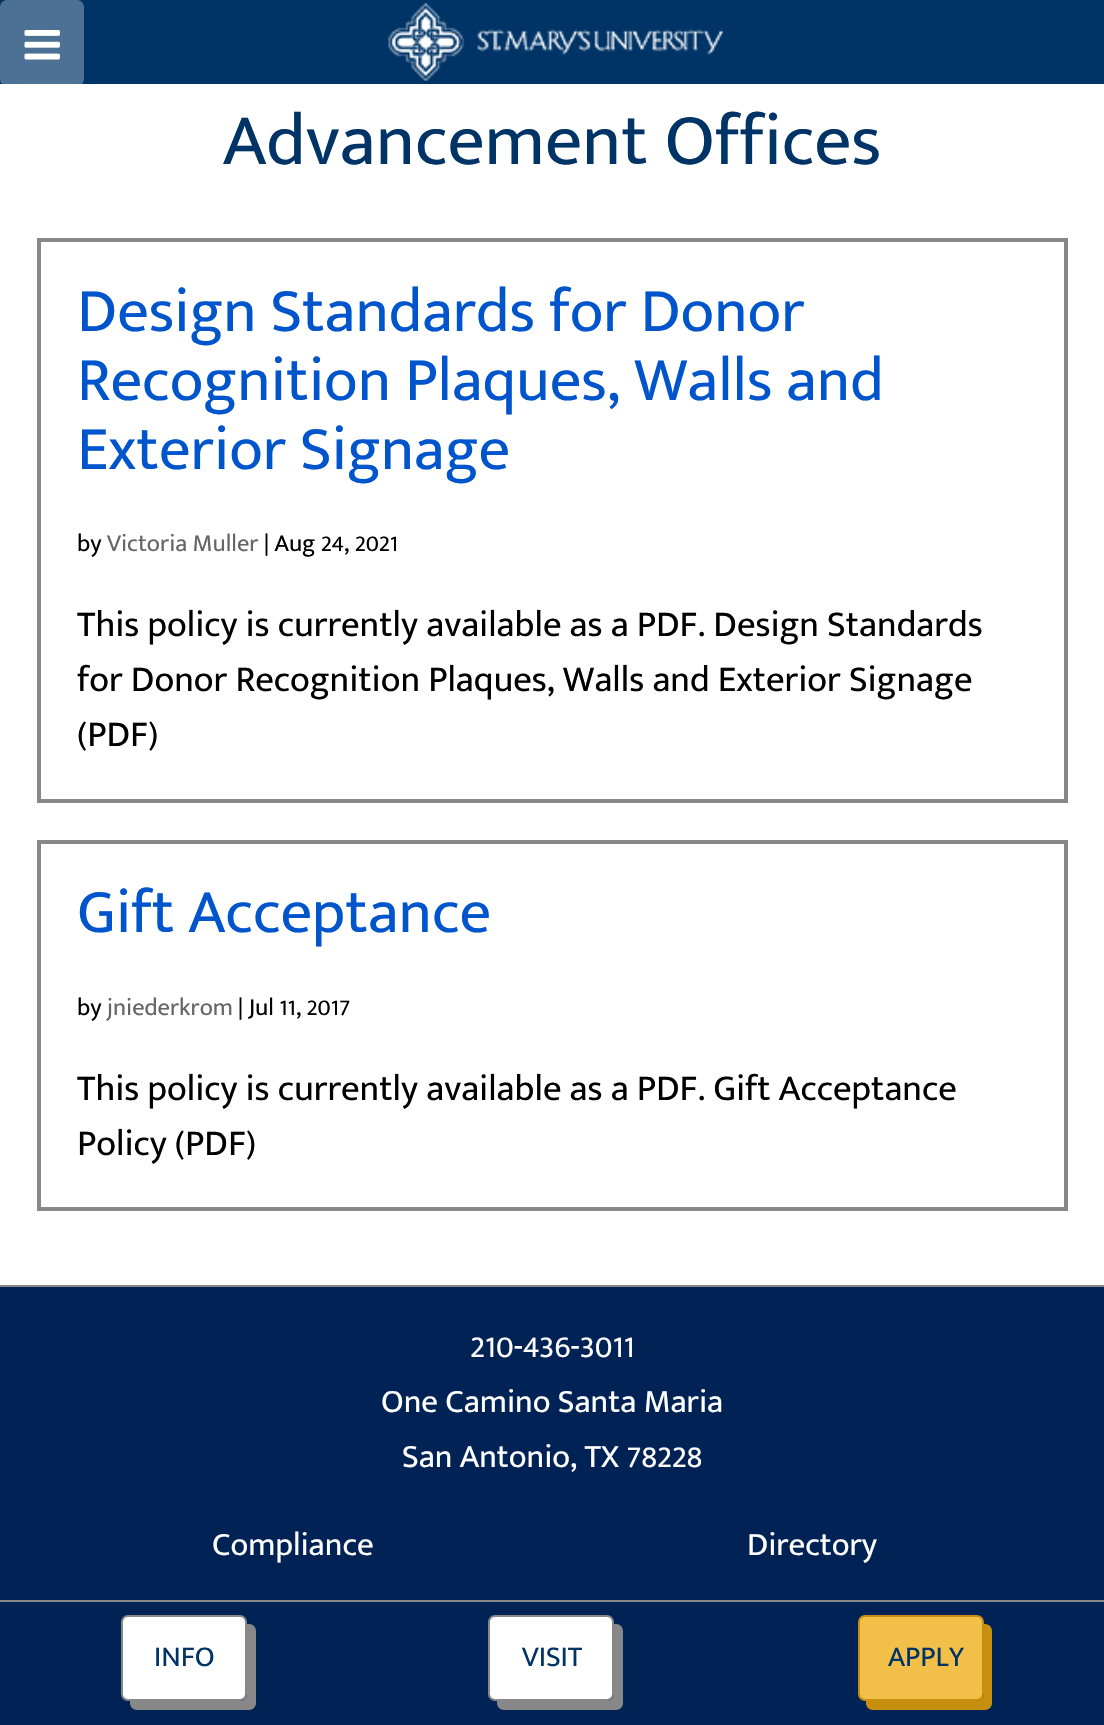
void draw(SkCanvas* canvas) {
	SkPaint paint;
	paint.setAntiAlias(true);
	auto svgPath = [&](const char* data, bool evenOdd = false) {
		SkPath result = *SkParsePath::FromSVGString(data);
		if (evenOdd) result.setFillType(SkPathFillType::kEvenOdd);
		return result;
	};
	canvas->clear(0xffffffff);
	paint.setColor(0xff003366);
	canvas->drawRect(SkRect::MakeXYWH(0, 0, 1104, 84), paint);
	canvas->drawImageRect(SkImages::DeferredFromEncodedData(SkData::MakeFromFileName("img1.png")), SkRect::MakeXYWH(388, 3, 335, 78), SkSamplingOptions());
	paint.setColor(0x4dffffff);
	canvas->drawRoundRect(SkRect::MakeXYWH(0, 0, 84, 86), 7, 7, paint);
	canvas->drawImageRect(SkImages::DeferredFromEncodedData(SkData::MakeFromFileName("img2.png")), SkRect::MakeXYWH(24, 30, 36, 30), SkSamplingOptions());
	SkFont f1(fontMgr->matchFamilyStyle("Mukta Mahee", SkFontStyle::Normal()), 73.5);
	f1.setSubpixel(true);
	paint.setColor(0xff003366);
	canvas->drawString("Advancement Offices", 223, 164, f1, paint);
	paint.setStroke(true);
	paint.setStrokeWidth(4);
	paint.setColor(0xff888888);
	canvas->drawRect(SkRect::MakeXYWH(39, 240, 1027, 561), paint);
	SkFont f2(fontMgr->matchFamilyStyle("Mukta Mahee", SkFontStyle::Normal()), 62.5);
	f2.setSubpixel(true);
	paint.setStroke(false);
	paint.setColor(0xff0055cc);
	canvas->drawString("Design Standards for Donor", 77, 331, f2, paint);
	canvas->drawString("Recognition Plaques, Walls and", 77, 400, f2, paint);
	canvas->drawString("Exterior Signage", 77, 469, f2, paint);
	SkFont f3(fontMgr->matchFamilyStyle("Mukta Mahee", SkFontStyle::Normal()), 24.5);
	f3.setSubpixel(true);
	paint.setColor(0xff000000);
	canvas->drawString("by", 77, 551, f3, paint);
	paint.setColor(0xff666666);
	canvas->drawString("Victoria Muller", 107, 551, f3, paint);
	paint.setColor(0xff000000);
	canvas->drawString("| Aug 24, 2021", 264, 551, f3, paint);
	SkFont f4(fontMgr->matchFamilyStyle("Mukta Mahee", SkFontStyle::Normal()), 36.75);
	f4.setSubpixel(true);
	canvas->drawString("This policy is currently available as a PDF. Design Standards", 77, 636, f4, paint);
	canvas->drawString("for Donor Recognition Plaques, Walls and Exterior Signage", 77, 691, f4, paint);
	canvas->drawString("(PDF)", 77, 746, f4, paint);
	paint.setStroke(true);
	paint.setColor(0xff888888);
	canvas->drawRect(SkRect::MakeXYWH(39, 842, 1027, 367), paint);
	paint.setStroke(false);
	paint.setColor(0xff0055cc);
	canvas->drawString("Gift Acceptance", 77, 932, f2, paint);
	paint.setColor(0xff000000);
	canvas->drawString("by", 77, 1015, f3, paint);
	paint.setColor(0xff666666);
	canvas->drawString("jniederkrom", 107, 1015, f3, paint);
	paint.setColor(0xff000000);
	canvas->drawString("| Jul 11, 2017", 238, 1015, f3, paint);
	canvas->drawString("This policy is currently available as a PDF. Gift Acceptance", 77, 1100, f4, paint);
	canvas->drawString("Policy (PDF)", 77, 1155, f4, paint);
	paint.setColor(0xff002255);
	canvas->drawRect(SkRect::MakeXYWH(0, 1287, 1104, 313), paint);
	paint.setColor(0xff888888);
	canvas->drawRect(SkRect::MakeXYWH(0, 1285, 1104, 2), paint);
	SkFont f5(fontMgr->matchFamilyStyle("Mukta Mahee", SkFontStyle::Normal()), 33);
	f5.setSubpixel(true);
	paint.setColor(0xffffffff);
	canvas->drawString("210-436-3011", 470, 1357, f5, paint);
	canvas->drawString("One Camino Santa Maria", 381, 1412, f5, paint);
	canvas->drawString("San Antonio, TX 78228", 402, 1467, f5, paint);
	canvas->drawString("Compliance", 212, 1555, f5, paint);
	canvas->drawString("Directory", 747, 1555, f5, paint);
	paint.setColor(0xff002255);
	canvas->drawRect(SkRect::MakeXYWH(0, 1602, 1104, 123), paint);
	paint.setColor(0xff888888);
	canvas->drawRect(SkRect::MakeXYWH(0, 1600, 1104, 2), paint);
	canvas->drawPath(svgPath("M130 1701V1703C130 1707 133 1710 137 1710H249C253 1710 256 1707 256 1703V1631C256 1627 253 1624 249 1624H247V1694C247 1698 244 1701 240 1701Z"), paint);
	paint.setColor(0xffffffff);
	canvas->drawRoundRect(SkRect::MakeXYWH(122, 1616, 124, 84), 6, 6, paint);
	paint.setStroke(true);
	paint.setStrokeWidth(2);
	paint.setColor(0xff888888);
	canvas->drawRoundRect(SkRect::MakeXYWH(122, 1616, 124, 84), 6, 6, paint);
	SkFont f6(fontMgr->matchFamilyStyle("Mukta Mahee", SkFontStyle::Normal()), 29);
	f6.setSubpixel(true);
	paint.setStroke(false);
	paint.setColor(0xff003366);
	canvas->drawString("INFO", 154, 1666, f6, paint);
	paint.setColor(0xff888888);
	canvas->drawPath(svgPath("M497 1701V1703C497 1707 500 1710 504 1710H616C620 1710 623 1707 623 1703V1631C623 1627 620 1624 616 1624H614V1694C614 1698 611 1701 607 1701Z"), paint);
	paint.setColor(0xffffffff);
	canvas->drawRoundRect(SkRect::MakeXYWH(489, 1616, 124, 84), 6, 6, paint);
	paint.setStroke(true);
	paint.setColor(0xff888888);
	canvas->drawRoundRect(SkRect::MakeXYWH(489, 1616, 124, 84), 6, 6, paint);
	paint.setStroke(false);
	paint.setColor(0xff003366);
	canvas->drawString("VISIT", 522, 1666, f6, paint);
	paint.setColor(0xffc78f0e);
	canvas->drawPath(svgPath("M866 1701V1703C866 1707 869 1710 873 1710H985C989 1710 992 1707 992 1703V1631C992 1627 989 1624 985 1624H984V1694C984 1698 980 1701 976 1701Z"), paint);
	paint.setColor(0xfff2bf49);
	canvas->drawRoundRect(SkRect::MakeXYWH(859, 1616, 124, 84), 6, 6, paint);
	paint.setStroke(true);
	paint.setColor(0xffc78f0e);
	canvas->drawRoundRect(SkRect::MakeXYWH(859, 1616, 124, 84), 6, 6, paint);
	paint.setStroke(false);
	paint.setColor(0xff003366);
	canvas->drawString("APPLY", 888, 1666, f6, paint);
}
